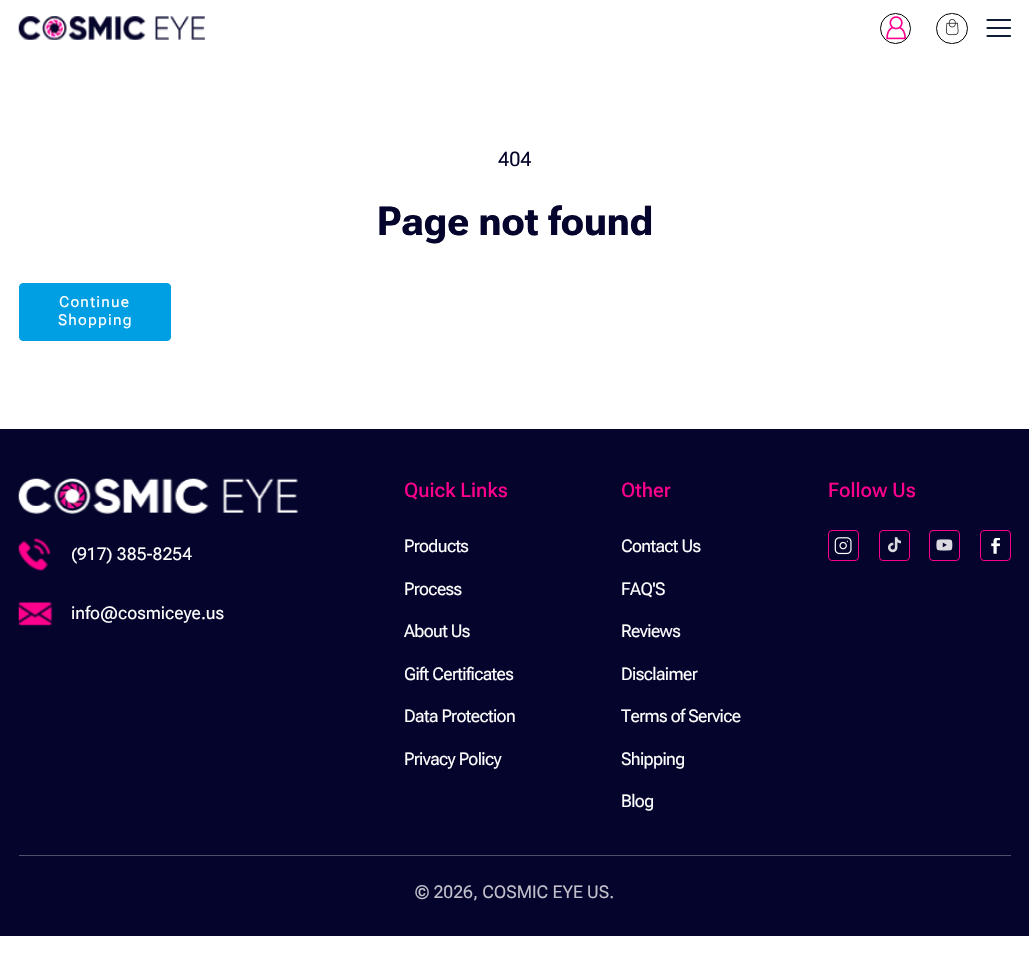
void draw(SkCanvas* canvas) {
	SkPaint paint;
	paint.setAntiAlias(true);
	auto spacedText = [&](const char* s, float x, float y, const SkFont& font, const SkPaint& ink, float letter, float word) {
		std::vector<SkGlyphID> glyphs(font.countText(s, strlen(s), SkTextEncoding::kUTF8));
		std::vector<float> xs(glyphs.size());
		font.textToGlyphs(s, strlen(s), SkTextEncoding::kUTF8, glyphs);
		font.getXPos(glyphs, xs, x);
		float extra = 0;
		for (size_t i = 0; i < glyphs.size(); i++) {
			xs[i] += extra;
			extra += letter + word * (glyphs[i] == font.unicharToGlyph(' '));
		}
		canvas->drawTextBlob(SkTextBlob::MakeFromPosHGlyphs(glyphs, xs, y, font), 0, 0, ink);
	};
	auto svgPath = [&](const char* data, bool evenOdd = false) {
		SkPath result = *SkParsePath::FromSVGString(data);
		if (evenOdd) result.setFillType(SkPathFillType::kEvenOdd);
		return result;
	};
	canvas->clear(0xffffffff);
	canvas->drawImageRect(SkImages::DeferredFromEncodedData(SkData::MakeFromFileName("img1.png")), SkRect::MakeXYWH(18, 16, 187, 24), SkSamplingOptions());
	paint.setStroke(true);
	paint.setStrokeWidth(1);
	paint.setColor(0xff000000);
	canvas->drawCircle(895.5, 28.5, 15, paint);
	canvas->drawImageRect(SkImages::DeferredFromEncodedData(SkData::MakeFromFileName("img2.png")), SkRect::MakeXYWH(886, 16, 20, 24), SkSamplingOptions());
	canvas->drawRoundRect(SkRect::MakeXYWH(936.5, 13.5, 31, 30), 15, 15, paint);
	canvas->drawImageRect(SkImages::DeferredFromEncodedData(SkData::MakeFromFileName("img3.png")), SkRect::MakeXYWH(946, 19, 13, 17), SkSamplingOptions());
	canvas->save();
	canvas->clipRect(SkRect::MakeXYWH(986, 19, 25, 19));
	paint.setStrokeWidth(2.2);
	paint.setStrokeCap(SkPaint::kRound_Cap);
	paint.setStrokeJoin(SkPaint::kRound_Join);
	paint.setColor(0xff0e1c37);
	canvas->drawPath(svgPath("M1010 28H987.5M1010 20H987.5M1010 36H987.5"), paint);
	canvas->restore();
	SkFont f1(fontMgr->matchFamilyStyle("Roboto Flex", SkFontStyle::Normal()), 20);
	f1.setSubpixel(true);
	paint.setStroke(false);
	paint.setColor(0xff05042c);
	canvas->drawString("404", 498, 166, f1, paint);
	SkFont f2(fontMgr->matchFamilyStyle("Roboto Flex", SkFontStyle::Bold()), 40);
	f2.setSubpixel(true);
	canvas->drawString("Page not found", 377, 235, f2, paint);
	paint.setColor(0xff009fe3);
	canvas->drawRoundRect(SkRect::MakeXYWH(19.5, 283.5, 151, 57), 3.5, 3.5, paint);
	paint.setStroke(true);
	paint.setStrokeWidth(1);
	paint.setStrokeCap(SkPaint::kButt_Cap);
	paint.setStrokeJoin(SkPaint::kMiter_Join);
	canvas->drawRoundRect(SkRect::MakeXYWH(19.5, 283.5, 151, 57), 3.5, 3.5, paint);
	SkFont f3(fontMgr->matchFamilyStyle("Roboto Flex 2", SkFontStyle::Normal()), 15);
	f3.setSubpixel(true);
	paint.setStroke(false);
	paint.setColor(0xffffffff);
	spacedText("Continue", 59, 307, f3, paint, 1.25, 0);
	spacedText("Shopping", 58, 325, f3, paint, 1.25, 0);
	paint.setColor(0xff05042c);
	canvas->drawRect(SkRect::MakeXYWH(0, 429, 1029, 507), paint);
	SkFont f4(fontMgr->matchFamilyStyle("Roboto Flex", SkFontStyle(500, SkFontStyle::kNormal_Width, SkFontStyle::kUpright_Slant)), 20);
	f4.setSubpixel(true);
	paint.setColor(0xffff008c);
	canvas->drawString("Quick Links", 404, 497, f4, paint);
	SkFont f5(fontMgr->matchFamilyStyle("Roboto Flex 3", SkFontStyle::Normal()), 17.5);
	f5.setSubpixel(true);
	paint.setColor(0xffffffff);
	spacedText("Products", 404, 552, f5, paint, -0.6, 0);
	spacedText("Process", 404, 595, f5, paint, -0.6, 0);
	spacedText("About Us", 404, 637, f5, paint, -0.6, 0);
	spacedText("Gift Certificates", 404, 680, f5, paint, -0.6, 0);
	spacedText("Data Protection", 404, 722, f5, paint, -0.6, 0);
	spacedText("Privacy Policy", 404, 765, f5, paint, -0.6, 0);
	paint.setColor(0xffff008c);
	canvas->drawString("Other", 621, 497, f4, paint);
	paint.setColor(0xffffffff);
	spacedText("Contact Us", 621, 552, f5, paint, -0.6, 0);
	spacedText("FAQ'S", 621, 595, f5, paint, -0.6, 0);
	spacedText("Reviews", 621, 637, f5, paint, -0.6, 0);
	spacedText("Disclaimer", 621, 680, f5, paint, -0.6, 0);
	spacedText("Terms of Service", 621, 722, f5, paint, -0.6, 0);
	spacedText("Shipping", 621, 765, f5, paint, -0.6, 0);
	spacedText("Blog", 621, 807, f5, paint, -0.6, 0);
	paint.setColor(0xffff008c);
	canvas->drawString("Follow Us", 828, 497, f4, paint);
	paint.setStroke(true);
	canvas->drawRoundRect(SkRect::MakeXYWH(828.5, 530.5, 30, 30), 3.5, 3.5, paint);
	canvas->drawImageRect(SkImages::DeferredFromEncodedData(SkData::MakeFromFileName("img4.png")), SkRect::MakeXYWH(834, 537, 18, 18), SkSamplingOptions());
	canvas->drawRoundRect(SkRect::MakeXYWH(879.5, 530.5, 30, 30), 3.5, 3.5, paint);
	canvas->drawImageRect(SkImages::DeferredFromEncodedData(SkData::MakeFromFileName("img5.png")), SkRect::MakeXYWH(888, 537, 13, 16), SkSamplingOptions());
	canvas->drawRoundRect(SkRect::MakeXYWH(929.5, 530.5, 30, 30), 3.5, 3.5, paint);
	canvas->drawImageRect(SkImages::DeferredFromEncodedData(SkData::MakeFromFileName("img6.png")), SkRect::MakeXYWH(936, 539, 17, 12), SkSamplingOptions());
	canvas->drawRoundRect(SkRect::MakeXYWH(980.5, 530.5, 30, 30), 3.5, 3.5, paint);
	canvas->drawImageRect(SkImages::DeferredFromEncodedData(SkData::MakeFromFileName("img7.png")), SkRect::MakeXYWH(991, 538, 9, 16), SkSamplingOptions());
	canvas->drawImageRect(SkImages::DeferredFromEncodedData(SkData::MakeFromFileName("img8.png")), SkRect::MakeXYWH(18, 478, 280, 36), SkSamplingOptions());
	canvas->drawImageRect(SkImages::DeferredFromEncodedData(SkData::MakeFromFileName("img9.png")), SkRect::MakeXYWH(18, 538, 33, 33), SkSamplingOptions());
	paint.setStroke(false);
	paint.setColor(0xffffffff);
	canvas->drawString("(917) 385-8254", 71, 560, f5, paint);
	canvas->drawImageRect(SkImages::DeferredFromEncodedData(SkData::MakeFromFileName("img10.png")), SkRect::MakeXYWH(18, 601, 35, 25), SkSamplingOptions());
	canvas->drawString("info@cosmiceye.us", 71, 619, f5, paint);
	paint.setColor(0xff504f6b);
	canvas->drawRect(SkRect::MakeXYWH(19, 855, 992, 1), paint);
	paint.setColor(0xffc1c0ca);
	canvas->drawString("© 2026, COSMIC EYE US.", 415, 898, f5, paint);
}
